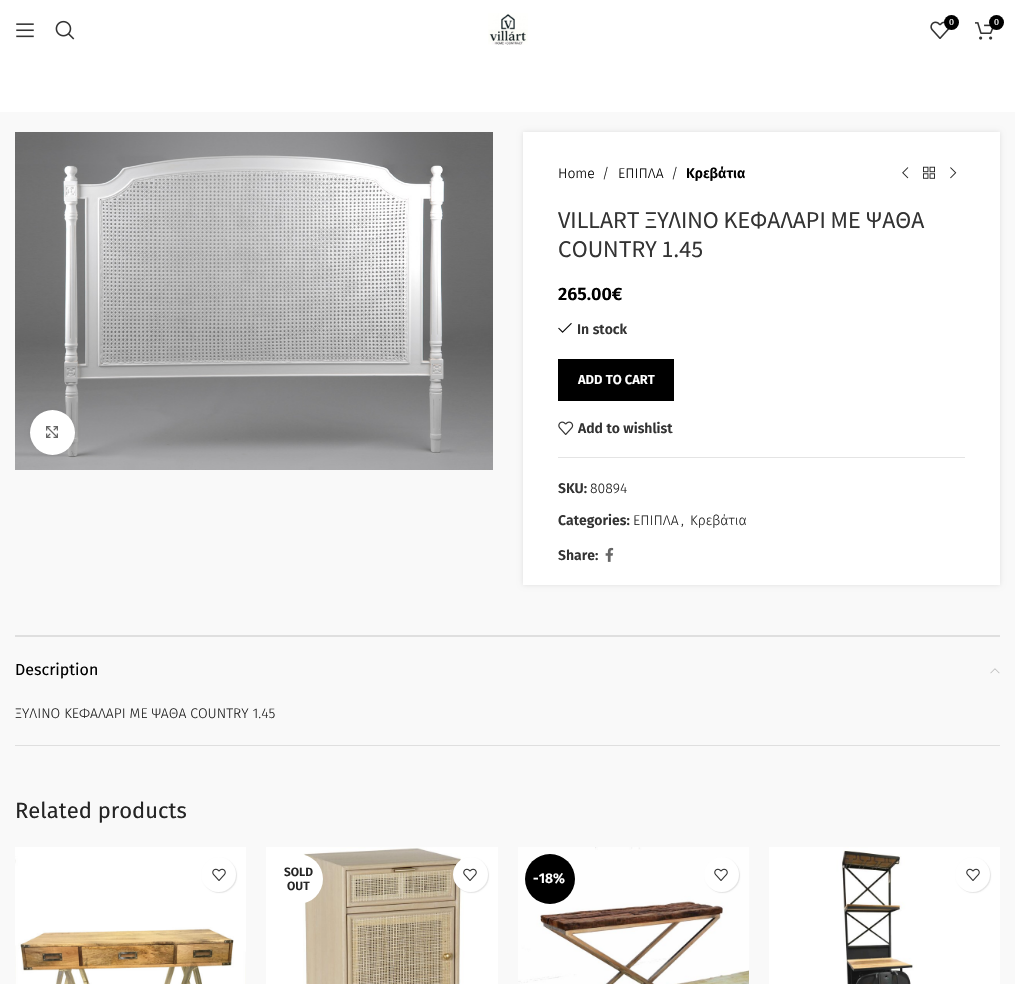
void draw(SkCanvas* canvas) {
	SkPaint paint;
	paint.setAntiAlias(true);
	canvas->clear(0xffffffff);
	canvas->drawImageRect(SkImages::DeferredFromEncodedData(SkData::MakeFromFileName("img1.png")), SkRect::MakeXYWH(16, 23, 18, 15), SkSamplingOptions());
	canvas->drawImageRect(SkImages::DeferredFromEncodedData(SkData::MakeFromFileName("img2.png")), SkRect::MakeXYWH(55, 20, 20, 20), SkSamplingOptions());
	canvas->drawImageRect(SkImages::DeferredFromEncodedData(SkData::MakeFromFileName("img3.png")), SkRect::MakeXYWH(488, 13, 40, 32), SkSamplingOptions());
	canvas->drawImageRect(SkImages::DeferredFromEncodedData(SkData::MakeFromFileName("img4.png")), SkRect::MakeXYWH(930, 21, 20, 18), SkSamplingOptions());
	paint.setColor(0xff000000);
	canvas->drawCircle(951.5, 22.5, 7.5, paint);
	SkFont f1(fontMgr->matchFamilyStyle("Fira Sans", SkFontStyle::Normal()), 9);
	f1.setSubpixel(true);
	paint.setColor(0xffffffff);
	canvas->drawString("0", 949, 25, f1, paint);
	canvas->drawImageRect(SkImages::DeferredFromEncodedData(SkData::MakeFromFileName("img5.png")), SkRect::MakeXYWH(975, 22, 19, 18), SkSamplingOptions());
	paint.setColor(0xff000000);
	canvas->drawCircle(996.5, 22.5, 7.5, paint);
	paint.setColor(0xffffffff);
	canvas->drawString("0", 994, 25, f1, paint);
	paint.setColor(0xfff9f9f9);
	canvas->drawRect(SkRect::MakeXYWH(0, 112, 1015, 872), paint);
	canvas->drawImageRect(SkImages::DeferredFromEncodedData(SkData::MakeFromFileName("img6.png")), SkRect::MakeXYWH(15, 132, 478, 338), SkSamplingOptions());
	paint.setColor(0x14000000);
	paint.setMaskFilter(SkMaskFilter::MakeBlur(kNormal_SkBlurStyle, 2.5));
	canvas->drawRoundRect(SkRect::MakeXYWH(30, 410, 45, 45), 22.5, 22.5, paint);
	paint.setMaskFilter(nullptr);
	paint.setColor(0xffffffff);
	canvas->drawCircle(52.5, 432.5, 22.5, paint);
	canvas->drawImageRect(SkImages::DeferredFromEncodedData(SkData::MakeFromFileName("img7.png")), SkRect::MakeXYWH(46, 426, 12, 12), SkSamplingOptions());
	paint.setColor(0x1a000000);
	paint.setMaskFilter(SkMaskFilter::MakeBlur(kNormal_SkBlurStyle, 2.5));
	canvas->drawRect(SkRect::MakeXYWH(523, 132, 477, 453), paint);
	paint.setMaskFilter(nullptr);
	paint.setColor(0xffffffff);
	canvas->drawRect(SkRect::MakeXYWH(523, 132, 477, 453), paint);
	SkFont f2(fontMgr->matchFamilyStyle("Fira Sans", SkFontStyle(300, SkFontStyle::kNormal_Width, SkFontStyle::kUpright_Slant)), 14);
	f2.setSubpixel(true);
	paint.setColor(0xff000000);
	canvas->drawString("Home", 558, 178, f2, paint);
	paint.setColor(0xff242424);
	canvas->drawString("/", 602, 178, f2, paint);
	paint.setColor(0xff000000);
	canvas->drawString("ΕΠΙΠΛΑ", 618, 178, f2, paint);
	paint.setColor(0xff242424);
	canvas->drawString("/", 671, 178, f2, paint);
	SkFont f3(fontMgr->matchFamilyStyle("Fira Sans", SkFontStyle(600, SkFontStyle::kNormal_Width, SkFontStyle::kUpright_Slant)), 14);
	f3.setSubpixel(true);
	paint.setColor(0xff000000);
	canvas->drawString("Κρεβάτια", 686, 178, f3, paint);
	canvas->drawImageRect(SkImages::DeferredFromEncodedData(SkData::MakeFromFileName("img8.png")), SkRect::MakeXYWH(902, 167, 7, 12), SkSamplingOptions());
	canvas->drawImageRect(SkImages::DeferredFromEncodedData(SkData::MakeFromFileName("img9.png")), SkRect::MakeXYWH(923, 166, 12, 13), SkSamplingOptions());
	canvas->drawImageRect(SkImages::DeferredFromEncodedData(SkData::MakeFromFileName("img10.png")), SkRect::MakeXYWH(950, 167, 7, 12), SkSamplingOptions());
	SkFont f4(fontMgr->matchFamilyStyle("Source Sans Pro", SkFontStyle::Normal()), 24);
	f4.setSubpixel(true);
	paint.setColor(0xff333333);
	canvas->drawString("VILLART ΞΥΛΙΝΟ ΚΕΦΑΛΑΡΙ ΜΕ ΨΑΘΑ", 558, 228, f4, paint);
	canvas->drawString("COUNTRY 1.45", 558, 257, f4, paint);
	SkFont f5(fontMgr->matchFamilyStyle("Fira Sans", SkFontStyle(600, SkFontStyle::kNormal_Width, SkFontStyle::kUpright_Slant)), 18);
	f5.setSubpixel(true);
	paint.setColor(0xff000000);
	canvas->drawString("265.00€", 558, 300, f5, paint);
	canvas->drawImageRect(SkImages::DeferredFromEncodedData(SkData::MakeFromFileName("img11.png")), SkRect::MakeXYWH(558, 322, 14, 11), SkSamplingOptions());
	paint.setColor(0xff333333);
	canvas->drawString("In stock", 577, 334, f3, paint);
	paint.setColor(0xff000000);
	canvas->drawRect(SkRect::MakeXYWH(558, 359, 116, 42), paint);
	SkFont f6(fontMgr->matchFamilyStyle("Fira Sans", SkFontStyle(600, SkFontStyle::kNormal_Width, SkFontStyle::kUpright_Slant)), 13);
	f6.setSubpixel(true);
	paint.setColor(0xffffffff);
	canvas->drawString("ADD TO CART", 578, 384, f6, paint);
	canvas->drawImageRect(SkImages::DeferredFromEncodedData(SkData::MakeFromFileName("img12.png")), SkRect::MakeXYWH(558, 421, 16, 14), SkSamplingOptions());
	paint.setColor(0xff333333);
	canvas->drawString("Add to wishlist", 578, 433, f3, paint);
	paint.setColor(0xffe4e4e4);
	canvas->drawRect(SkRect::MakeXYWH(558, 457, 407, 1), paint);
	paint.setColor(0xff333333);
	canvas->drawString("SKU:", 558, 493, f3, paint);
	paint.setColor(0xff242424);
	canvas->drawString("80894", 590, 493, f2, paint);
	paint.setColor(0xff333333);
	canvas->drawString("Categories:", 558, 525, f3, paint);
	paint.setColor(0xff242424);
	canvas->drawString("ΕΠΙΠΛΑ", 633, 525, f2, paint);
	canvas->drawString("Κρεβάτια", 690, 525, f2, paint);
	canvas->drawString(",", 681, 525, f2, paint);
	paint.setColor(0xff333333);
	canvas->drawString("Share:", 558, 560, f3, paint);
	canvas->drawImageRect(SkImages::DeferredFromEncodedData(SkData::MakeFromFileName("img13.png")), SkRect::MakeXYWH(605, 547, 9, 15), SkSamplingOptions());
	paint.setColor(0xffdfdfdf);
	canvas->drawRect(SkRect::MakeXYWH(15, 635, 985, 2), paint);
	canvas->drawRect(SkRect::MakeXYWH(15, 745, 985, 1), paint);
	SkFont f7(fontMgr->matchFamilyStyle("Fira Sans", SkFontStyle::Normal()), 16);
	f7.setSubpixel(true);
	paint.setColor(0xff000000);
	canvas->drawString("Description", 15, 675, f7, paint);
	canvas->drawImageRect(SkImages::DeferredFromEncodedData(SkData::MakeFromFileName("img14.png")), SkRect::MakeXYWH(990, 668, 10, 6), SkSamplingOptions());
	paint.setColor(0xff242424);
	canvas->drawString("ΞΥΛΙΝΟ ΚΕΦΑΛΑΡΙ ΜΕ ΨΑΘΑ COUNTRY 1.45", 15, 718, f2, paint);
	SkFont f8(fontMgr->matchFamilyStyle("Fira Sans", SkFontStyle::Normal()), 22);
	f8.setSubpixel(true);
	canvas->drawString("Related products", 15, 818, f8, paint);
	canvas->drawImageRect(SkImages::DeferredFromEncodedData(SkData::MakeFromFileName("img15.png")), SkRect::MakeXYWH(15, 847, 231, 137), SkSamplingOptions());
	paint.setColor(0x1a000000);
	paint.setMaskFilter(SkMaskFilter::MakeBlur(kNormal_SkBlurStyle, 0.5));
	canvas->drawRoundRect(SkRect::MakeXYWH(202, 858, 35, 35), 17.5, 17.5, paint);
	paint.setMaskFilter(nullptr);
	paint.setColor(0xffffffff);
	canvas->drawCircle(218.5, 874.5, 17.5, paint);
	canvas->drawImageRect(SkImages::DeferredFromEncodedData(SkData::MakeFromFileName("img16.png")), SkRect::MakeXYWH(212, 868, 14, 13), SkSamplingOptions());
	canvas->drawImageRect(SkImages::DeferredFromEncodedData(SkData::MakeFromFileName("img17.png")), SkRect::MakeXYWH(266, 847, 232, 137), SkSamplingOptions());
	canvas->drawCircle(298, 879, 25, paint);
	SkFont f9(fontMgr->matchFamilyStyle("Fira Sans", SkFontStyle(600, SkFontStyle::kNormal_Width, SkFontStyle::kUpright_Slant)), 12);
	f9.setSubpixel(true);
	paint.setColor(0xff242424);
	canvas->drawString("SOLD", 284, 876, f9, paint);
	canvas->drawString("OUT", 287, 890, f9, paint);
	paint.setColor(0x1a000000);
	paint.setMaskFilter(SkMaskFilter::MakeBlur(kNormal_SkBlurStyle, 0.5));
	canvas->drawRoundRect(SkRect::MakeXYWH(454, 858, 35, 35), 17.5, 17.5, paint);
	paint.setMaskFilter(nullptr);
	paint.setColor(0xffffffff);
	canvas->drawCircle(470.5, 874.5, 17.5, paint);
	canvas->drawImageRect(SkImages::DeferredFromEncodedData(SkData::MakeFromFileName("img16.png")), SkRect::MakeXYWH(463, 868, 14, 13), SkSamplingOptions());
	canvas->drawImageRect(SkImages::DeferredFromEncodedData(SkData::MakeFromFileName("img18.png")), SkRect::MakeXYWH(518, 847, 231, 137), SkSamplingOptions());
	paint.setColor(0xff000000);
	canvas->drawCircle(550, 879, 25, paint);
	paint.setColor(0xffffffff);
	canvas->drawString("-18%", 533, 883, f3, paint);
	paint.setColor(0x1a000000);
	paint.setMaskFilter(SkMaskFilter::MakeBlur(kNormal_SkBlurStyle, 0.5));
	canvas->drawRoundRect(SkRect::MakeXYWH(705, 858, 35, 35), 17.5, 17.5, paint);
	paint.setMaskFilter(nullptr);
	paint.setColor(0xffffffff);
	canvas->drawCircle(721.5, 874.5, 17.5, paint);
	canvas->drawImageRect(SkImages::DeferredFromEncodedData(SkData::MakeFromFileName("img16.png")), SkRect::MakeXYWH(714, 868, 14, 13), SkSamplingOptions());
	canvas->drawImageRect(SkImages::DeferredFromEncodedData(SkData::MakeFromFileName("img19.png")), SkRect::MakeXYWH(769, 847, 231, 137), SkSamplingOptions());
	paint.setColor(0x1a000000);
	paint.setMaskFilter(SkMaskFilter::MakeBlur(kNormal_SkBlurStyle, 0.5));
	canvas->drawRoundRect(SkRect::MakeXYWH(956, 858, 35, 35), 17.5, 17.5, paint);
	paint.setMaskFilter(nullptr);
	paint.setColor(0xffffffff);
	canvas->drawCircle(972.5, 874.5, 17.5, paint);
	canvas->drawImageRect(SkImages::DeferredFromEncodedData(SkData::MakeFromFileName("img16.png")), SkRect::MakeXYWH(966, 868, 14, 13), SkSamplingOptions());
}
